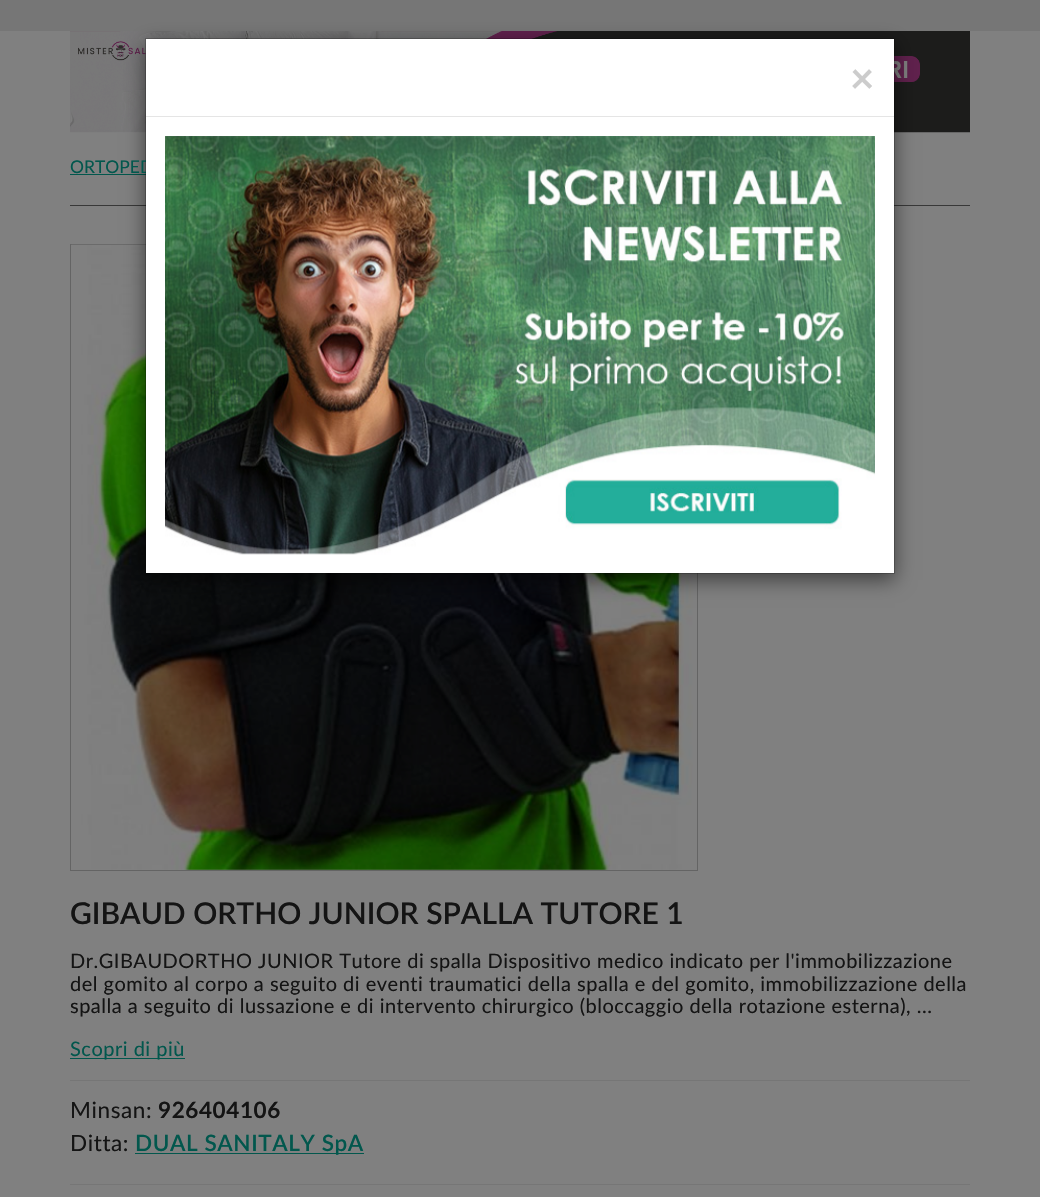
void draw(SkCanvas* canvas) {
	SkPaint paint;
	paint.setAntiAlias(true);
	auto spacedText = [&](const char* s, float x, float y, const SkFont& font, const SkPaint& ink, float letter, float word) {
		std::vector<SkGlyphID> glyphs(font.countText(s, strlen(s), SkTextEncoding::kUTF8));
		std::vector<float> xs(glyphs.size());
		font.textToGlyphs(s, strlen(s), SkTextEncoding::kUTF8, glyphs);
		font.getXPos(glyphs, xs, x);
		float extra = 0;
		for (size_t i = 0; i < glyphs.size(); i++) {
			xs[i] += extra;
			extra += letter + word * (glyphs[i] == font.unicharToGlyph(' '));
		}
		canvas->drawTextBlob(SkTextBlob::MakeFromPosHGlyphs(glyphs, xs, y, font), 0, 0, ink);
	};
	canvas->clear(0xff808080);
	paint.setColor(0xff767676);
	canvas->drawRect(SkRect::MakeXYWH(0, 0, 1040, 31), paint);
	canvas->drawImageRect(SkImages::DeferredFromEncodedData(SkData::MakeFromFileName("img1.png")), SkRect::MakeXYWH(70, 31, 900, 102), SkSamplingOptions());
	paint.setColor(0xff02574d);
	canvas->drawRect(SkRect::MakeXYWH(70, 174, 76, 1), paint);
	paint.setColor(0xff383838);
	canvas->drawRect(SkRect::MakeXYWH(70, 205, 900, 1), paint);
	paint.setStroke(true);
	paint.setStrokeWidth(1);
	paint.setColor(0xff646464);
	canvas->drawRect(SkRect::MakeXYWH(70.5, 244.5, 627, 626), paint);
	canvas->drawImageRect(SkImages::DeferredFromEncodedData(SkData::MakeFromFileName("img3.png")), SkRect::MakeXYWH(71, 244, 625, 626), SkSamplingOptions());
	paint.setStroke(false);
	paint.setColor(0x80000000);
	paint.setMaskFilter(SkMaskFilter::MakeBlur(kNormal_SkBlurStyle, 9.5));
	canvas->drawRect(SkRect::MakeXYWH(145, 44, 750, 536), paint);
	paint.setMaskFilter(nullptr);
	SkFont f1(fontMgr->matchFamilyStyle("Lato", SkFontStyle::Normal()), 17.5);
	f1.setSubpixel(true);
	paint.setColor(0xff02574d);
	canvas->drawString("ORTOPED", 70, 173, f1, paint);
	paint.setColor(0xffffffff);
	canvas->drawRect(SkRect::MakeXYWH(146, 39, 748, 534), paint);
	paint.setStroke(true);
	paint.setColor(0x33000000);
	canvas->drawRect(SkRect::MakeXYWH(145.5, 38.5, 749, 535), paint);
	paint.setStroke(false);
	paint.setColor(0xffe5e5e5);
	canvas->drawRect(SkRect::MakeXYWH(146, 116, 748, 1), paint);
	SkFont f2(fontMgr->matchFamilyStyle("Lato", SkFontStyle::Bold()), 42);
	f2.setSubpixel(true);
	paint.setColor(0xffcccccc);
	canvas->drawString("×", 850, 93, f2, paint);
	canvas->drawImageRect(SkImages::DeferredFromEncodedData(SkData::MakeFromFileName("img2.png")), SkRect::MakeXYWH(165, 136, 710, 419), SkSamplingOptions());
	SkFont f3(fontMgr->matchFamilyStyle("Lato", SkFontStyle(600, SkFontStyle::kNormal_Width, SkFontStyle::kUpright_Slant)), 30);
	f3.setSubpixel(true);
	paint.setColor(0xff141414);
	canvas->drawString("GIBAUD ORTHO JUNIOR SPALLA TUTORE 1", 70, 924, f3, paint);
	paint.setColor(0xff767676);
	canvas->drawRect(SkRect::MakeXYWH(70, 1080, 900, 1), paint);
	SkFont f4(fontMgr->matchFamilyStyle("Lato", SkFontStyle::Normal()), 20);
	f4.setSubpixel(true);
	paint.setColor(0xff141414);
	spacedText("Dr.GIBAUDORTHO JUNIOR Tutore di spalla Dispositivo medico indicato per l'immobilizzazione", 70, 968, f4, paint, 0.5, 0);
	spacedText("del gomito al corpo a seguito di eventi traumatici della spalla e del gomito, immobilizzazione della", 70, 991, f4, paint, 0.5, 0);
	spacedText("spalla a seguito di lussazione e di intervento chirurgico (bloccaggio della rotazione esterna), ...", 70, 1013, f4, paint, 0.5, 0);
	paint.setColor(0xff02574d);
	canvas->drawRect(SkRect::MakeXYWH(70, 1058, 115, 1), paint);
	spacedText("Scopri di più", 70, 1056, f4, paint, 0.5, 0);
	paint.setColor(0xff767676);
	canvas->drawRect(SkRect::MakeXYWH(70, 1184, 900, 1), paint);
	SkFont f5(fontMgr->matchFamilyStyle("Lato", SkFontStyle::Normal()), 22.5);
	f5.setSubpixel(true);
	paint.setColor(0xff141414);
	spacedText("Minsan:", 70, 1118, f5, paint, 0.6, 0);
	SkFont f6(fontMgr->matchFamilyStyle("Lato", SkFontStyle::Bold()), 22.5);
	f6.setSubpixel(true);
	spacedText("926404106", 158, 1118, f6, paint, 0.6, 0);
	spacedText("Ditta:", 70, 1151, f5, paint, 0.6, 0);
	paint.setColor(0xff02574d);
	canvas->drawRect(SkRect::MakeXYWH(135, 1153, 229, 1), paint);
	SkFont f7(fontMgr->matchFamilyStyle("Lato", SkFontStyle(600, SkFontStyle::kNormal_Width, SkFontStyle::kUpright_Slant)), 22.5);
	f7.setSubpixel(true);
	spacedText("DUAL SANITALY SpA", 135, 1151, f7, paint, 0.6, 0);
}
